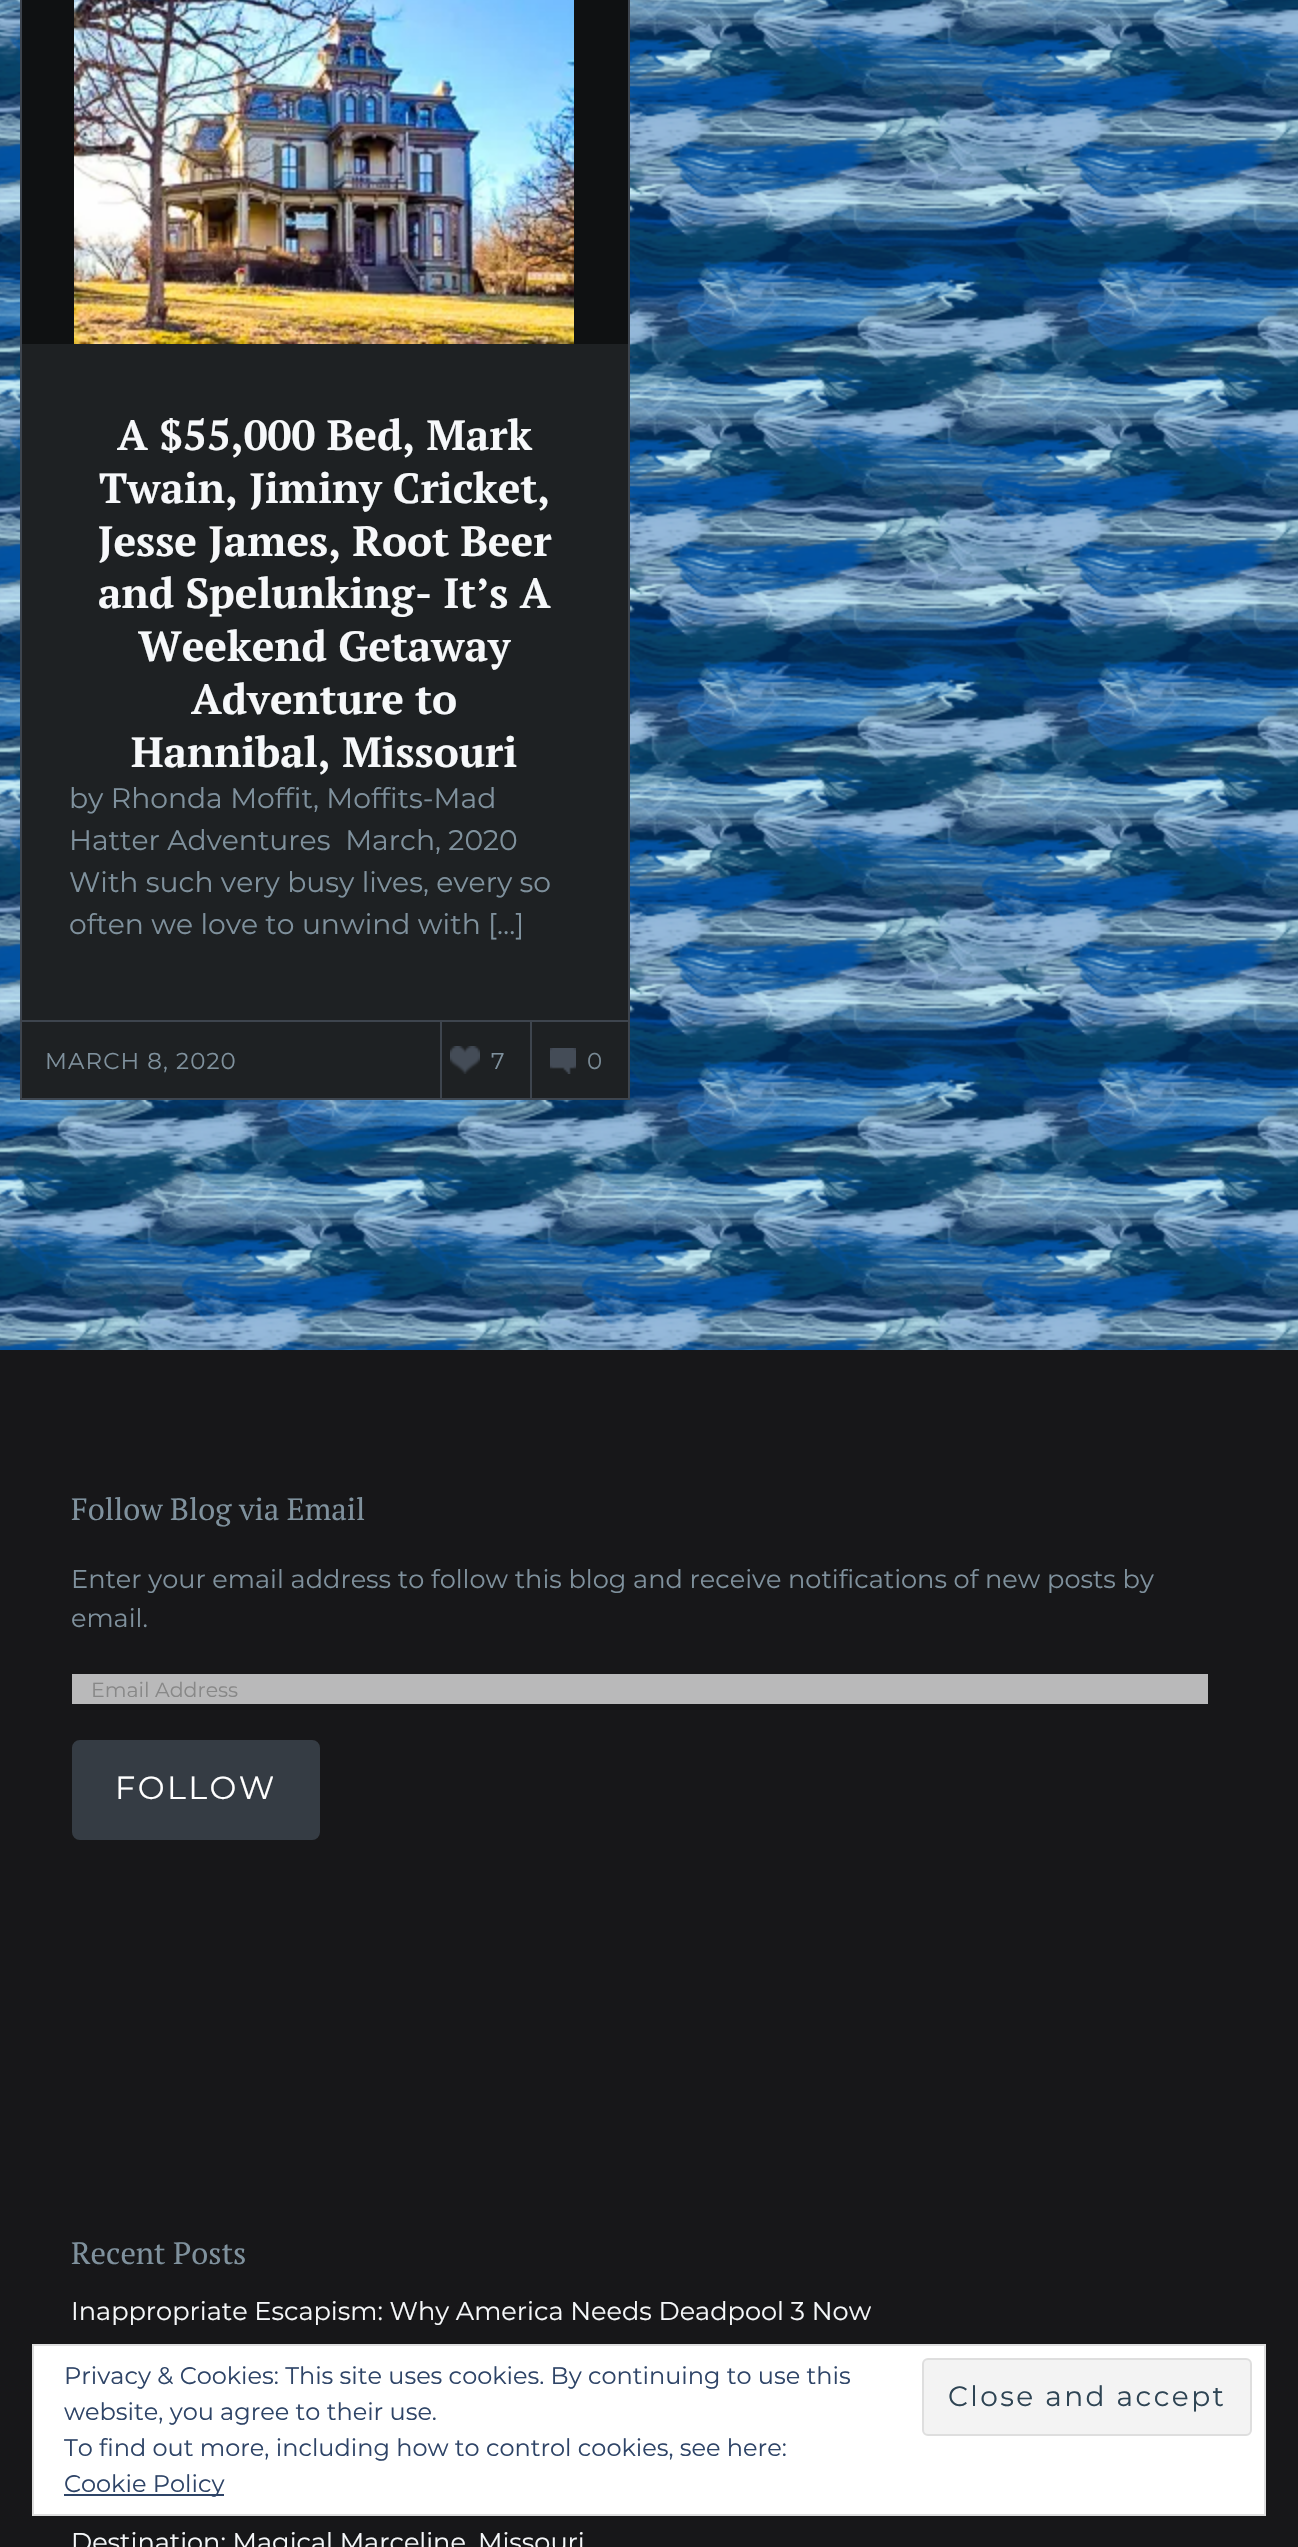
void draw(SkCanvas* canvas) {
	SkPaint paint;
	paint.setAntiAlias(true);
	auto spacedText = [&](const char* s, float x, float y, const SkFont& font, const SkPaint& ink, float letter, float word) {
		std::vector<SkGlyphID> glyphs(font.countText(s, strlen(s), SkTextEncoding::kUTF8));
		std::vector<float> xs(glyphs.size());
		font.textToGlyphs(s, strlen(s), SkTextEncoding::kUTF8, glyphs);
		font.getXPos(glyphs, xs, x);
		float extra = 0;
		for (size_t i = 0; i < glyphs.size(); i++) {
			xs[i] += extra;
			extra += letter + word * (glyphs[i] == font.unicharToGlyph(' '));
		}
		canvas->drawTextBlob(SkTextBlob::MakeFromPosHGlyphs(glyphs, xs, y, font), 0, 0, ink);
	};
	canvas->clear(0xffffffff);
	canvas->drawImageRect(SkImages::DeferredFromEncodedData(SkData::MakeFromFileName("img1.png")), SkRect::MakeXYWH(0, 0, 1298, 1350), SkSamplingOptions());
	paint.setColor(0xff1e2123);
	canvas->drawRect(SkRect::MakeXYWH(22, 344, 606, 754), paint);
	paint.setStroke(true);
	paint.setStrokeWidth(2);
	paint.setColor(0xff3e454e);
	canvas->drawRect(SkRect::MakeXYWH(21, -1, 608, 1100), paint);
	paint.setStroke(false);
	paint.setColor(0xff0f1112);
	canvas->drawRect(SkRect::MakeXYWH(22, 0, 606, 344), paint);
	canvas->drawImageRect(SkImages::DeferredFromEncodedData(SkData::MakeFromFileName("img2.png")), SkRect::MakeXYWH(74, 0, 500, 344), SkSamplingOptions());
	SkFont f1(fontMgr->matchFamilyStyle("PT Serif", SkFontStyle::Bold()), 42.25);
	f1.setSubpixel(true);
	paint.setColor(0xfff6f8fa);
	canvas->drawString("A $55,000 Bed, Mark", 117, 450, f1, paint);
	canvas->drawString("Twain, Jiminy Cricket,", 99, 503, f1, paint);
	canvas->drawString("Jesse James, Root Beer", 98, 556, f1, paint);
	canvas->drawString("and Spelunking- It’s A", 98, 608, f1, paint);
	canvas->drawString("Weekend Getaway", 138, 661, f1, paint);
	canvas->drawString("Adventure to", 191, 714, f1, paint);
	canvas->drawString("Hannibal, Missouri", 131, 767, f1, paint);
	SkFont f2(fontMgr->matchFamilyStyle("Montserrat", SkFontStyle::Normal()), 28.2);
	f2.setSubpixel(true);
	paint.setColor(0xff7f919d);
	canvas->drawString("by Rhonda Moffit, Moffits-Mad", 69, 808, f2, paint);
	canvas->drawString("Hatter Adventures  March, 2020", 69, 850, f2, paint);
	canvas->drawString("With such very busy lives, every so", 69, 892, f2, paint);
	canvas->drawString("often we love to unwind with […]", 69, 934, f2, paint);
	paint.setColor(0xff3e454e);
	canvas->drawRect(SkRect::MakeXYWH(22, 1020, 606, 2), paint);
	SkFont f3(fontMgr->matchFamilyStyle("Montserrat", SkFontStyle::Normal()), 22.9);
	f3.setSubpixel(true);
	paint.setColor(0xff7f919d);
	spacedText("MARCH 8, 2020", 45, 1069, f3, paint, 1.1, 0);
	canvas->drawImageRect(SkImages::DeferredFromEncodedData(SkData::MakeFromFileName("img3.png")), SkRect::MakeXYWH(450, 1046, 30, 28), SkSamplingOptions());
	paint.setColor(0xff3e454e);
	canvas->drawRect(SkRect::MakeXYWH(440, 1022, 2, 76), paint);
	paint.setColor(0xff7f919d);
	spacedText("7", 491, 1069, f3, paint, 1.1, 0);
	canvas->drawImageRect(SkImages::DeferredFromEncodedData(SkData::MakeFromFileName("img4.png")), SkRect::MakeXYWH(550, 1048, 26, 26), SkSamplingOptions());
	paint.setColor(0xff3e454e);
	canvas->drawRect(SkRect::MakeXYWH(530, 1022, 2, 76), paint);
	paint.setColor(0xff798a95);
	spacedText("0", 587, 1069, f3, paint, 1.1, 0);
	paint.setColor(0xff171719);
	canvas->drawRect(SkRect::MakeXYWH(0, 1350, 1298, 1197), paint);
	SkFont f4(fontMgr->matchFamilyStyle("PT Serif", SkFontStyle::Normal()), 30.75);
	f4.setSubpixel(true);
	paint.setColor(0xff7f919d);
	canvas->drawString("Follow Blog via Email", 71, 1520, f4, paint);
	SkFont f5(fontMgr->matchFamilyStyle("Montserrat", SkFontStyle::Normal()), 25.6);
	f5.setSubpixel(true);
	canvas->drawString("Enter your email address to follow this blog and receive notifications of new posts by", 71, 1588, f5, paint);
	canvas->drawString("email.", 71, 1627, f5, paint);
	paint.setColor(0xffb9b9ba);
	canvas->drawRect(SkRect::MakeXYWH(72, 1674, 1136, 30), paint);
	SkFont f6(fontMgr->matchFamilyStyle("Montserrat", SkFontStyle::Normal()), 20.5);
	f6.setSubpixel(true);
	paint.setColor(0xff888888);
	canvas->drawString("Email Address", 91, 1697, f6, paint);
	paint.setColor(0xff353c44);
	canvas->drawRoundRect(SkRect::MakeXYWH(74, 1742, 244, 96), 6, 6, paint);
	paint.setStroke(true);
	paint.setStrokeWidth(4);
	canvas->drawRoundRect(SkRect::MakeXYWH(74, 1742, 244, 96), 6, 6, paint);
	SkFont f7(fontMgr->matchFamilyStyle("Montserrat", SkFontStyle::Normal()), 32);
	f7.setSubpixel(true);
	paint.setStroke(false);
	paint.setColor(0xffffffff);
	spacedText("FOLLOW", 115, 1799, f7, paint, 2.4, 0);
	paint.setColor(0xff7f919d);
	canvas->drawString("Recent Posts", 71, 2264, f4, paint);
	paint.setColor(0xfff6f8fa);
	canvas->drawString("Inappropriate Escapism: Why America Needs Deadpool 3 Now", 71, 2320, f5, paint);
	canvas->drawString("Destination: Magical Marceline, Missouri", 71, 2551, f5, paint);
	paint.setColor(0xffffffff);
	canvas->drawRect(SkRect::MakeXYWH(33, 2345, 1232, 170), paint);
	paint.setStroke(true);
	paint.setStrokeWidth(2);
	paint.setColor(0xffdedede);
	canvas->drawRect(SkRect::MakeXYWH(33, 2345, 1232, 170), paint);
	SkFont f8(fontMgr->matchFamilyStyle("Montserrat", SkFontStyle::Normal()), 24);
	f8.setSubpixel(true);
	paint.setStroke(false);
	paint.setColor(0xff2e4467);
	canvas->drawString("Privacy & Cookies: This site uses cookies. By continuing to use this", 64, 2384, f8, paint);
	canvas->drawString("website, you agree to their use.", 64, 2420, f8, paint);
	paint.setColor(0xfff3f3f3);
	canvas->drawRoundRect(SkRect::MakeXYWH(923, 2359, 328, 76), 5, 5, paint);
	paint.setStroke(true);
	paint.setColor(0xffdedede);
	canvas->drawRoundRect(SkRect::MakeXYWH(923, 2359, 328, 76), 5, 5, paint);
	SkFont f9(fontMgr->matchFamilyStyle("Montserrat", SkFontStyle::Normal()), 28);
	f9.setSubpixel(true);
	paint.setStroke(false);
	paint.setColor(0xff2e4453);
	spacedText("Close and accept", 948, 2406, f9, paint, 2.4, 0);
	paint.setColor(0xff2e4467);
	canvas->drawString("To find out more, including how to control cookies, see here:", 64, 2456, f8, paint);
	canvas->drawRect(SkRect::MakeXYWH(64, 2494, 160, 2), paint);
	canvas->drawString("Cookie Policy", 64, 2492, f8, paint);
}
